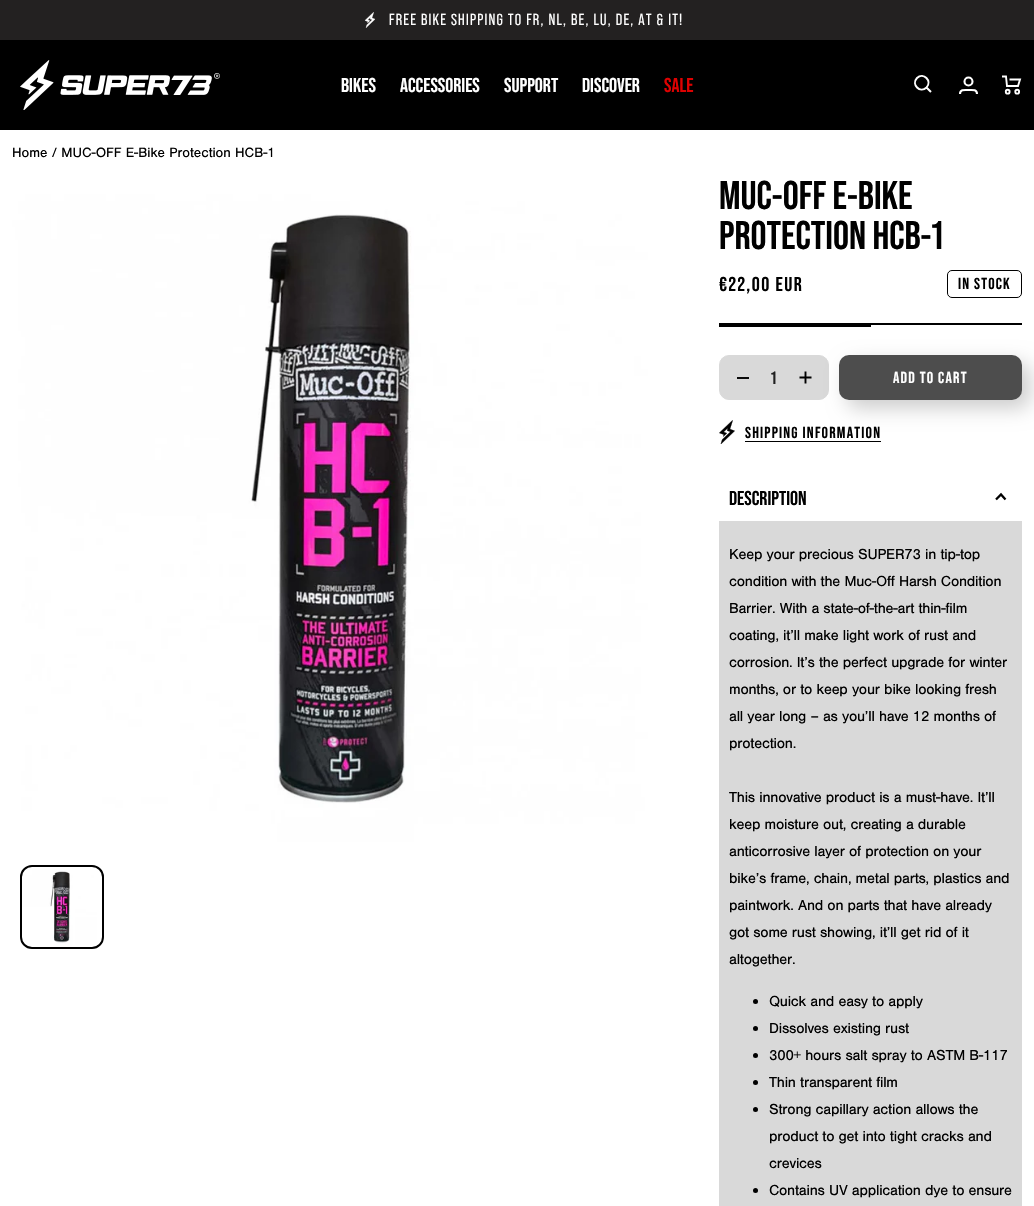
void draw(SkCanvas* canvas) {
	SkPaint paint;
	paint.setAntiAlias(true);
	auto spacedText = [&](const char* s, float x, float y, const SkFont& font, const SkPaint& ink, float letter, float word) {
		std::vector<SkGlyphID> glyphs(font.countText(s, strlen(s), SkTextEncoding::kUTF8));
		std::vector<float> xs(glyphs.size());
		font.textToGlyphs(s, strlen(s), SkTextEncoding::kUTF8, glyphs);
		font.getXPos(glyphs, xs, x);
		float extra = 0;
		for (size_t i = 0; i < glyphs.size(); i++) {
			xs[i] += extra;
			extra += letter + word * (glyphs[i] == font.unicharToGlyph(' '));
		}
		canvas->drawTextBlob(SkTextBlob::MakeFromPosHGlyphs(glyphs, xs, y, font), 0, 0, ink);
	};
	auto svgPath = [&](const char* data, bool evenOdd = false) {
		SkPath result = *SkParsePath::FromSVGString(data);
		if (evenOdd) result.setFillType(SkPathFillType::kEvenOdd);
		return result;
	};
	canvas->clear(0xffffffff);
	paint.setColor(0xff232121);
	canvas->drawRect(SkRect::MakeXYWH(0, 0, 1034, 40), paint);
	canvas->drawImageRect(SkImages::DeferredFromEncodedData(SkData::MakeFromFileName("img1.png")), SkRect::MakeXYWH(364, 12, 11, 16), SkSamplingOptions());
	SkFont f1(fontMgr->matchFamilyStyle("Bebas Neue", SkFontStyle::Normal()), 16);
	f1.setSubpixel(true);
	paint.setColor(0xffffffff);
	spacedText("FREE BIKE SHIPPING TO FR, NL, BE, LU, DE, AT & IT!", 389, 25, f1, paint, 1.2, 0);
	paint.setColor(0xff000000);
	canvas->drawRect(SkRect::MakeXYWH(0, 40, 1034, 90), paint);
	canvas->drawImageRect(SkImages::DeferredFromEncodedData(SkData::MakeFromFileName("img2.png")), SkRect::MakeXYWH(20, 60, 200, 50), SkSamplingOptions());
	SkFont f2(fontMgr->matchFamilyStyle("Bebas Neue", SkFontStyle::Bold()), 20);
	f2.setSubpixel(true);
	paint.setColor(0xffffffff);
	canvas->drawString("BIKES", 341, 92, f2, paint);
	canvas->drawString("ACCESSORIES", 400, 92, f2, paint);
	canvas->drawString("SUPPORT", 504, 92, f2, paint);
	canvas->drawString("DISCOVER", 582, 92, f2, paint);
	paint.setColor(0xffde0101);
	canvas->drawString("SALE", 664, 92, f2, paint);
	paint.setStroke(true);
	paint.setStrokeWidth(2);
	paint.setColor(0xffffffff);
	canvas->drawPath(svgPath("M926.5 87.5C932.5 81 923.5 72 917 78C911 84.5 920 93.5 926.5 87.5ZM926.5 87.5L931 92"), paint);
	paint.setStrokeWidth(2.1);
	canvas->drawCircle(968.5, 81.5, 4, paint);
	canvas->drawPath(svgPath("M960 94C960 89 965 90 968.5 90C972 90 977 89 977 94"), paint);
	paint.setStrokeWidth(1.9);
	canvas->drawPath(svgPath("M1002 76.5H1006L1007 86H1018L1020 79.5H1009.5"), paint);
	canvas->drawCircle(1007.7, 91.7, 1.9, paint);
	canvas->drawCircle(1017.2, 91.7, 1.9, paint);
	SkFont f3(fontMgr->matchFamilyStyle("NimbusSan", SkFontStyle::Normal()), 14);
	f3.setSubpixel(true);
	paint.setStroke(false);
	paint.setColor(0xff000000);
	canvas->drawString("Home / MUC-OFF E-Bike Protection HCB-1", 12, 157, f3, paint);
	canvas->drawImageRect(SkImages::DeferredFromEncodedData(SkData::MakeFromFileName("img3.png")), SkRect::MakeXYWH(12, 175, 667, 667), SkSamplingOptions());
	canvas->drawImageRect(SkImages::DeferredFromEncodedData(SkData::MakeFromFileName("img4.png")), SkRect::MakeXYWH(22, 867, 80, 80), SkSamplingOptions());
	paint.setStroke(true);
	paint.setStrokeWidth(2);
	canvas->drawRoundRect(SkRect::MakeXYWH(21, 866, 82, 82), 11, 11, paint);
	SkFont f4(fontMgr->matchFamilyStyle("Bebas Neue", SkFontStyle::Bold()), 40);
	f4.setSubpixel(true);
	paint.setStroke(false);
	canvas->drawString("MUC-OFF E-BIKE", 719, 209, f4, paint);
	canvas->drawString("PROTECTION HCB-1", 719, 249, f4, paint);
	canvas->drawRect(SkRect::MakeXYWH(719, 323, 303, 2), paint);
	spacedText("€22,00 EUR", 719, 291, f2, paint, 1.5, 0);
	paint.setStroke(true);
	paint.setStrokeWidth(1);
	canvas->drawRoundRect(SkRect::MakeXYWH(947.5, 270.5, 74, 27), 4.5, 4.5, paint);
	SkFont f5(fontMgr->matchFamilyStyle("Bebas Neue", SkFontStyle::Bold()), 16);
	f5.setSubpixel(true);
	paint.setStroke(false);
	spacedText("IN STOCK", 958, 289, f5, paint, 1.2, 0);
	canvas->drawRect(SkRect::MakeXYWH(719, 325, 152, 2), paint);
	paint.setColor(0xffd9d9d9);
	canvas->drawRoundRect(SkRect::MakeXYWH(719.5, 355.5, 109, 44), 9.5, 9.5, paint);
	paint.setStroke(true);
	canvas->drawRoundRect(SkRect::MakeXYWH(719.5, 355.5, 109, 44), 9.5, 9.5, paint);
	paint.setStroke(false);
	paint.setColor(0xff0b0b0b);
	canvas->drawRect(SkRect::MakeXYWH(737, 377, 12, 2), paint);
	SkFont f6(fontMgr->matchFamilyStyle("Bebas Neue", SkFontStyle::Bold()), 18);
	f6.setSubpixel(true);
	paint.setColor(0xff212121);
	canvas->drawString("1", 771, 384, f6, paint);
	paint.setStroke(true);
	paint.setStrokeWidth(1.9);
	paint.setColor(0xff000000);
	canvas->drawPath(svgPath("M799.5 377.5H811.5M805.5 371.5V383.5"), paint);
	paint.setStroke(false);
	paint.setColor(0x33000000);
	paint.setMaskFilter(SkMaskFilter::MakeBlur(kNormal_SkBlurStyle, 10));
	canvas->drawRoundRect(SkRect::MakeXYWH(847, 363, 183, 45), 10, 10, paint);
	paint.setMaskFilter(nullptr);
	paint.setColor(0xff4d4d4d);
	canvas->drawRoundRect(SkRect::MakeXYWH(839, 355, 183, 45), 10, 10, paint);
	paint.setColor(0xffffffff);
	spacedText("ADD TO CART", 893, 383, f5, paint, 1.2, 0);
	canvas->drawImageRect(SkImages::DeferredFromEncodedData(SkData::MakeFromFileName("img5.png")), SkRect::MakeXYWH(719, 420, 16, 24), SkSamplingOptions());
	paint.setColor(0xff000000);
	spacedText("SHIPPING INFORMATION", 745, 438, f5, paint, 1.2, 0);
	canvas->drawRect(SkRect::MakeXYWH(745, 441, 136, 1), paint);
	canvas->drawString("DESCRIPTION", 729, 505, f2, paint);
	paint.setStroke(true);
	paint.setStrokeWidth(2.3);
	canvas->drawPath(svgPath("M1005.5 499.5L1001 494.5L996 499.5"), paint);
	paint.setStroke(false);
	paint.setColor(0xffd9d9d9);
	canvas->drawRect(SkRect::MakeXYWH(719, 521, 303, 685), paint);
	SkFont f7(fontMgr->matchFamilyStyle("NimbusSan", SkFontStyle::Normal()), 15);
	f7.setSubpixel(true);
	paint.setColor(0xff000000);
	spacedText("Keep your precious SUPER73 in tip-top", 729, 559, f7, paint, -0.2, 0);
	spacedText("condition with the Muc-Off Harsh Condition", 729, 586, f7, paint, -0.2, 0);
	spacedText("Barrier. With a state-of-the-art thin-film", 729, 613, f7, paint, -0.2, 0);
	spacedText("coating, it’ll make light work of rust and", 729, 640, f7, paint, -0.2, 0);
	spacedText("corrosion. It’s the perfect upgrade for winter", 729, 667, f7, paint, -0.2, 0);
	spacedText("months, or to keep your bike looking fresh", 729, 694, f7, paint, -0.2, 0);
	spacedText("all year long – as you’ll have 12 months of", 729, 721, f7, paint, -0.2, 0);
	spacedText("protection.", 729, 748, f7, paint, -0.2, 0);
	spacedText("This innovative product is a must-have. It’ll", 729, 802, f7, paint, -0.2, 0);
	spacedText("keep moisture out, creating a durable", 729, 829, f7, paint, -0.2, 0);
	spacedText("anticorrosive layer of protection on your", 729, 856, f7, paint, -0.2, 0);
	spacedText("bike’s frame, chain, metal parts, plastics and", 729, 883, f7, paint, -0.2, 0);
	spacedText("paintwork. And on parts that have already", 729, 910, f7, paint, -0.2, 0);
	spacedText("got some rust showing, it’ll get rid of it", 729, 937, f7, paint, -0.2, 0);
	spacedText("altogether.", 729, 964, f7, paint, -0.2, 0);
	canvas->drawCircle(755.5, 1001.5, 2.5, paint);
	spacedText("Quick and easy to apply", 769, 1006, f7, paint, -0.2, 0);
	canvas->drawCircle(755.5, 1028.5, 2.5, paint);
	spacedText("Dissolves existing rust", 769, 1033, f7, paint, -0.2, 0);
	canvas->drawCircle(755.5, 1055.5, 2.5, paint);
	spacedText("300+ hours salt spray to ASTM B-117", 769, 1060, f7, paint, -0.2, 0);
	canvas->drawCircle(755.5, 1082.5, 2.5, paint);
	spacedText("Thin transparent film", 769, 1087, f7, paint, -0.2, 0);
	canvas->drawCircle(755.5, 1109.5, 2.5, paint);
	spacedText("Strong capillary action allows the", 769, 1114, f7, paint, -0.2, 0);
	spacedText("product to get into tight cracks and", 769, 1141, f7, paint, -0.2, 0);
	spacedText("crevices", 769, 1168, f7, paint, -0.2, 0);
	canvas->drawCircle(755.5, 1190.5, 2.5, paint);
	spacedText("Contains UV application dye to ensure", 769, 1195, f7, paint, -0.2, 0);
}
